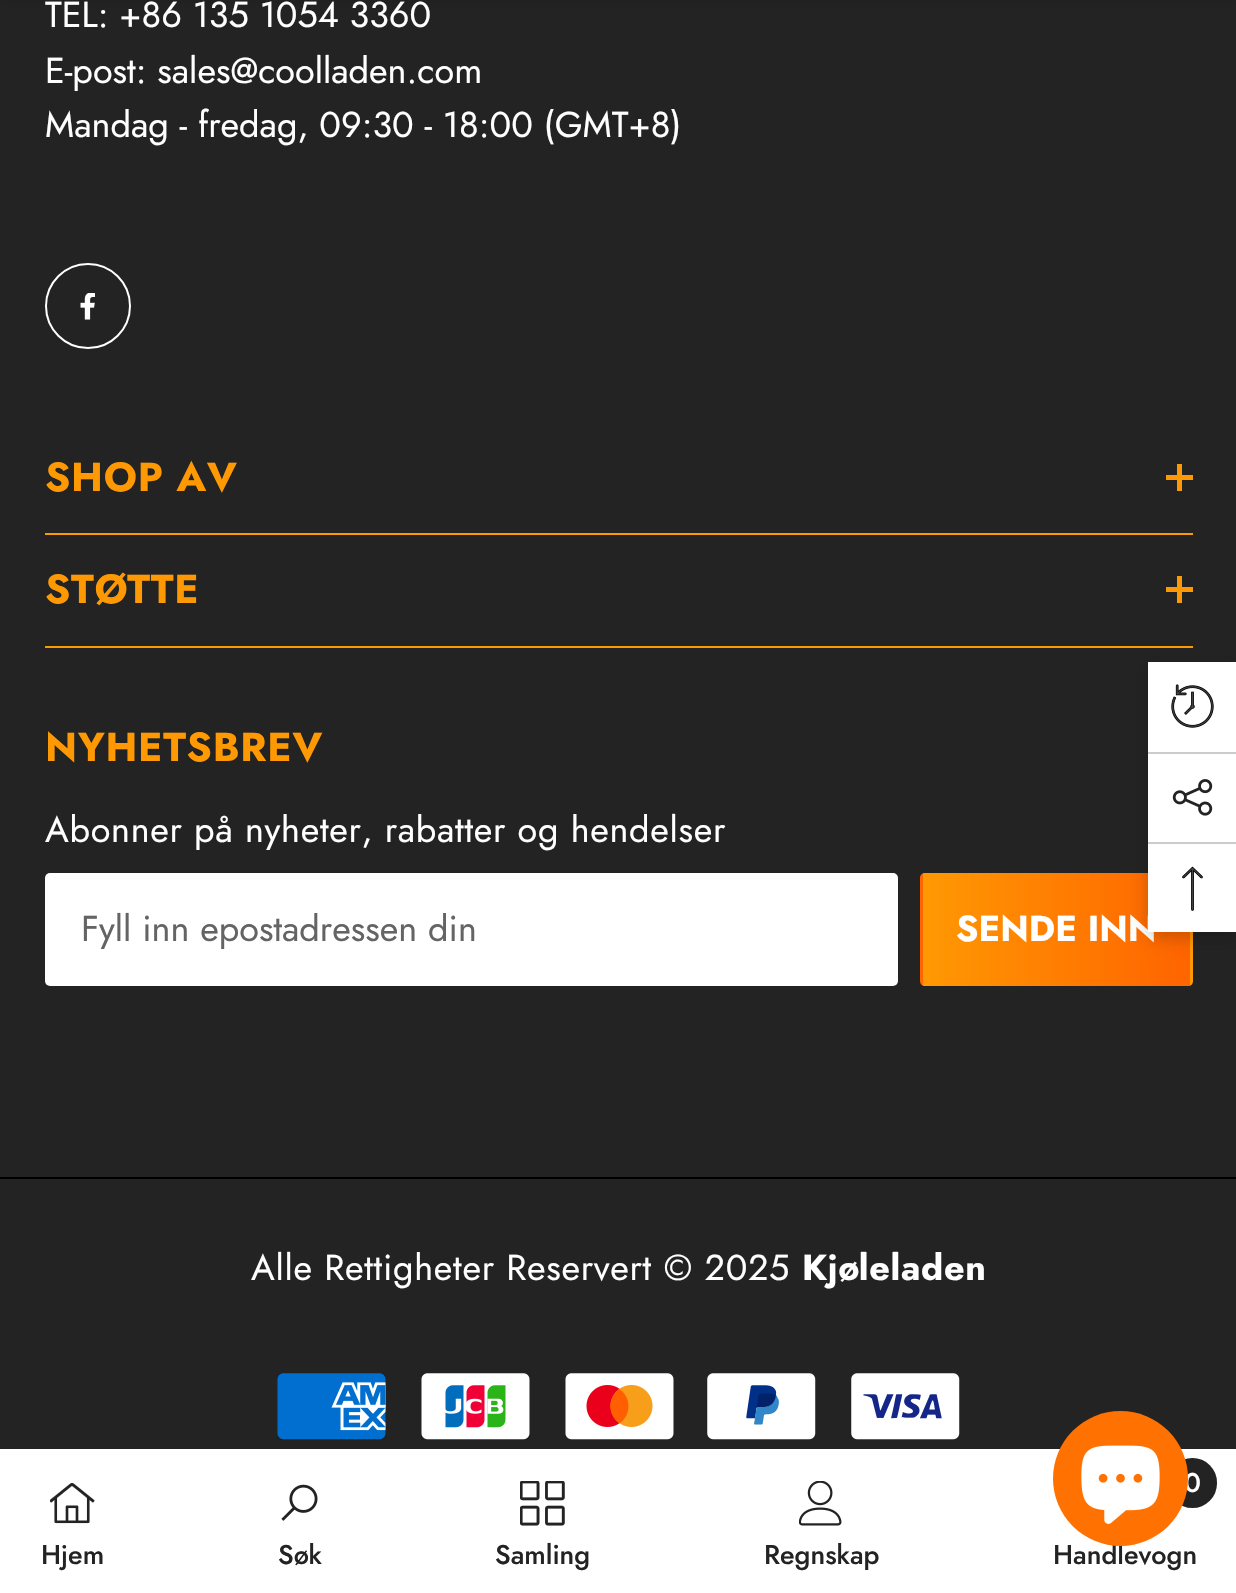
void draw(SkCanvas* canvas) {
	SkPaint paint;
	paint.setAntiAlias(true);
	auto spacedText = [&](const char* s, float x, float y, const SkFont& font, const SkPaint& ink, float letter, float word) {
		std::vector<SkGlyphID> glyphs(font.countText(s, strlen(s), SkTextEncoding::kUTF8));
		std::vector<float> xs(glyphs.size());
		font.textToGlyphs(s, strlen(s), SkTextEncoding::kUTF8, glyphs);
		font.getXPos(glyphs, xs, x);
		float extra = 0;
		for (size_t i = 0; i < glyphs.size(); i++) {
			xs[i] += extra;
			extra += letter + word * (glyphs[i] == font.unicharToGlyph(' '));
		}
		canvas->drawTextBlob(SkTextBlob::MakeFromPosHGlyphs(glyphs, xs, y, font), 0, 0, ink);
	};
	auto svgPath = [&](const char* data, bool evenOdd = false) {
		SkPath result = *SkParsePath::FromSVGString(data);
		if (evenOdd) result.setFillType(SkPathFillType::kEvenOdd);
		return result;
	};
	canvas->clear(0xff232323);
	paint.setColor(0x1a000000);
	paint.setMaskFilter(SkMaskFilter::MakeBlur(kNormal_SkBlurStyle, 3.5));
	canvas->drawRect(SkRect::MakeXYWH(0, -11, 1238, 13), paint);
	paint.setMaskFilter(nullptr);
	SkFont f1(fontMgr->matchFamilyStyle("Jost", SkFontStyle::Normal()), 36);
	f1.setSubpixel(true);
	paint.setColor(0xffffffff);
	canvas->drawString("TEL: +86 135 1054 3360", 45, 27, f1, paint);
	canvas->drawString("E-post: sales@coolladen.com", 45, 83, f1, paint);
	canvas->drawString("Mandag - fredag, 09:30 - 18:00 (GMT+8)", 45, 137, f1, paint);
	paint.setStroke(true);
	paint.setStrokeWidth(2);
	canvas->drawCircle(88, 306, 42, paint);
	canvas->drawImageRect(SkImages::DeferredFromEncodedData(SkData::MakeFromFileName("img1.png")), SkRect::MakeXYWH(80, 293, 15, 27), SkSamplingOptions());
	paint.setStroke(false);
	paint.setColor(0xffff9903);
	canvas->drawRect(SkRect::MakeXYWH(45, 533, 1148, 2), paint);
	SkFont f2(fontMgr->matchFamilyStyle("Jost", SkFontStyle::Bold()), 40.5);
	f2.setSubpixel(true);
	spacedText("SHOP AV", 45, 491, f2, paint, 0.75, 0);
	canvas->drawRect(SkRect::MakeXYWH(1177, 464, 5, 27), paint);
	canvas->drawRect(SkRect::MakeXYWH(1166, 475, 27, 5), paint);
	canvas->drawRect(SkRect::MakeXYWH(45, 646, 1148, 2), paint);
	spacedText("STØTTE", 45, 603, f2, paint, 0.75, 0);
	canvas->drawRect(SkRect::MakeXYWH(1177, 576, 5, 27), paint);
	canvas->drawRect(SkRect::MakeXYWH(1166, 587, 27, 5), paint);
	spacedText("NYHETSBREV", 45, 761, f2, paint, 0.75, 0);
	paint.setColor(0xffffffff);
	spacedText("Abonner på nyheter, rabatter og hendelser", 45, 842, f1, paint, 0.7, 0);
	canvas->drawRoundRect(SkRect::MakeXYWH(45, 873, 853, 113), 5, 5, paint);
	paint.setColor(0xff646464);
	canvas->drawString("Fyll inn epostadressen din", 81, 941, f1, paint);
	canvas->save();
	canvas->clipPath(svgPath("M925 873H1188C1191 873 1193 875 1193 878V981C1193 984 1191 986 1188 986H925C922 986 920 984 920 981V878C920 875 922 873 925 873Z"), true);
	{
		const SkColor colors[] = {0xffff9903, 0xffff6500};
		const float stops[] = {0, 0.97};
		const SkPoint ends[] = {{655, 929}, {923, 929}};
		paint.setShader(SkGradientShader::MakeLinear(ends, colors, stops, 2, SkTileMode::kClamp));
		paint.setAlpha(255);
	}
	canvas->drawRect(SkRect::MakeXYWH(920, 873, 3, 113), paint);
	{
		const SkColor colors[] = {0xffff9903, 0xffff6500};
		const float stops[] = {0, 0.97};
		const SkPoint ends[] = {{923, 929}, {1190, 929}};
		paint.setShader(SkGradientShader::MakeLinear(ends, colors, stops, 2, SkTileMode::kClamp));
		paint.setAlpha(255);
	}
	canvas->drawRect(SkRect::MakeXYWH(923, 873, 267, 113), paint);
	{
		const SkColor colors[] = {0xffff9903, 0xffff6500};
		const float stops[] = {0, 0.97};
		const SkPoint ends[] = {{1190, 929}, {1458, 929}};
		paint.setShader(SkGradientShader::MakeLinear(ends, colors, stops, 2, SkTileMode::kClamp));
		paint.setAlpha(255);
	}
	canvas->drawRect(SkRect::MakeXYWH(1190, 932, 3, 54), paint);
	canvas->restore();
	SkFont f3(fontMgr->matchFamilyStyle("Jost", SkFontStyle::Bold()), 36);
	f3.setSubpixel(true);
	paint.setShader(nullptr);
	paint.setColor(0xffffffff);
	canvas->drawString("SENDE INN", 956, 941, f3, paint);
	paint.setColor(0xff000000);
	canvas->drawRect(SkRect::MakeXYWH(0, 1177, 1236, 2), paint);
	paint.setColor(0xffffffff);
	spacedText("Alle Rettigheter Reservert © 2025", 251, 1280, f1, paint, 0.7, 0);
	spacedText("Kjøleladen", 802, 1280, f3, paint, 0.7, 0);
	canvas->drawImageRect(SkImages::DeferredFromEncodedData(SkData::MakeFromFileName("img2.png")), SkRect::MakeXYWH(277, 1373, 109, 67), SkSamplingOptions());
	canvas->drawImageRect(SkImages::DeferredFromEncodedData(SkData::MakeFromFileName("img3.png")), SkRect::MakeXYWH(421, 1373, 109, 67), SkSamplingOptions());
	canvas->drawImageRect(SkImages::DeferredFromEncodedData(SkData::MakeFromFileName("img4.png")), SkRect::MakeXYWH(565, 1373, 109, 67), SkSamplingOptions());
	canvas->drawImageRect(SkImages::DeferredFromEncodedData(SkData::MakeFromFileName("img5.png")), SkRect::MakeXYWH(707, 1373, 109, 67), SkSamplingOptions());
	canvas->drawImageRect(SkImages::DeferredFromEncodedData(SkData::MakeFromFileName("img6.png")), SkRect::MakeXYWH(851, 1373, 109, 67), SkSamplingOptions());
	canvas->drawRect(SkRect::MakeXYWH(0, 1449, 1236, 144), paint);
	canvas->drawImageRect(SkImages::DeferredFromEncodedData(SkData::MakeFromFileName("img7.png")), SkRect::MakeXYWH(50, 1483, 45, 41), SkSamplingOptions());
	SkFont f4(fontMgr->matchFamilyStyle("Jost", SkFontStyle(500, SkFontStyle::kNormal_Width, SkFontStyle::kUpright_Slant)), 27);
	f4.setSubpixel(true);
	paint.setColor(0xff232323);
	canvas->drawString("Hjem", 41, 1564, f4, paint);
	canvas->drawImageRect(SkImages::DeferredFromEncodedData(SkData::MakeFromFileName("img8.png")), SkRect::MakeXYWH(281, 1484, 37, 37), SkSamplingOptions());
	canvas->drawString("Søk", 278, 1564, f4, paint);
	canvas->drawImageRect(SkImages::DeferredFromEncodedData(SkData::MakeFromFileName("img9.png")), SkRect::MakeXYWH(520, 1481, 45, 45), SkSamplingOptions());
	canvas->drawString("Samling", 495, 1564, f4, paint);
	canvas->drawImageRect(SkImages::DeferredFromEncodedData(SkData::MakeFromFileName("img10.png")), SkRect::MakeXYWH(799, 1481, 43, 45), SkSamplingOptions());
	canvas->drawString("Regnskap", 764, 1564, f4, paint);
	canvas->drawRoundRect(SkRect::MakeXYWH(1168, 1458, 49, 50), 24.5, 24.5, paint);
	paint.setColor(0xffffffff);
	canvas->drawString("0", 1184, 1492, f4, paint);
	paint.setColor(0xff232323);
	canvas->drawString("Handlevogn", 1053, 1564, f4, paint);
	paint.setColor(0x33000000);
	paint.setMaskFilter(SkMaskFilter::MakeBlur(kNormal_SkBlurStyle, 8));
	canvas->drawRect(SkRect::MakeXYWH(1148, 668, 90, 270), paint);
	paint.setMaskFilter(nullptr);
	paint.setColor(0xffffffff);
	canvas->drawRect(SkRect::MakeXYWH(1148, 662, 88, 270), paint);
	canvas->drawImageRect(SkImages::DeferredFromEncodedData(SkData::MakeFromFileName("img11.png")), SkRect::MakeXYWH(1171, 684, 43, 44), SkSamplingOptions());
	paint.setColor(0xffcccccc);
	canvas->drawRect(SkRect::MakeXYWH(1148, 752, 88, 2), paint);
	canvas->drawImageRect(SkImages::DeferredFromEncodedData(SkData::MakeFromFileName("img12.png")), SkRect::MakeXYWH(1172, 779, 41, 37), SkSamplingOptions());
	canvas->drawRect(SkRect::MakeXYWH(1148, 842, 88, 2), paint);
	canvas->drawImageRect(SkImages::DeferredFromEncodedData(SkData::MakeFromFileName("img13.png")), SkRect::MakeXYWH(1182, 866, 21, 45), SkSamplingOptions());
	paint.setColor(0xffff7101);
	canvas->drawCircle(1120.5, 1478.5, 67.5, paint);
	canvas->drawImageRect(SkImages::DeferredFromEncodedData(SkData::MakeFromFileName("img14.png")), SkRect::MakeXYWH(1081, 1445, 79, 79), SkSamplingOptions());
}
